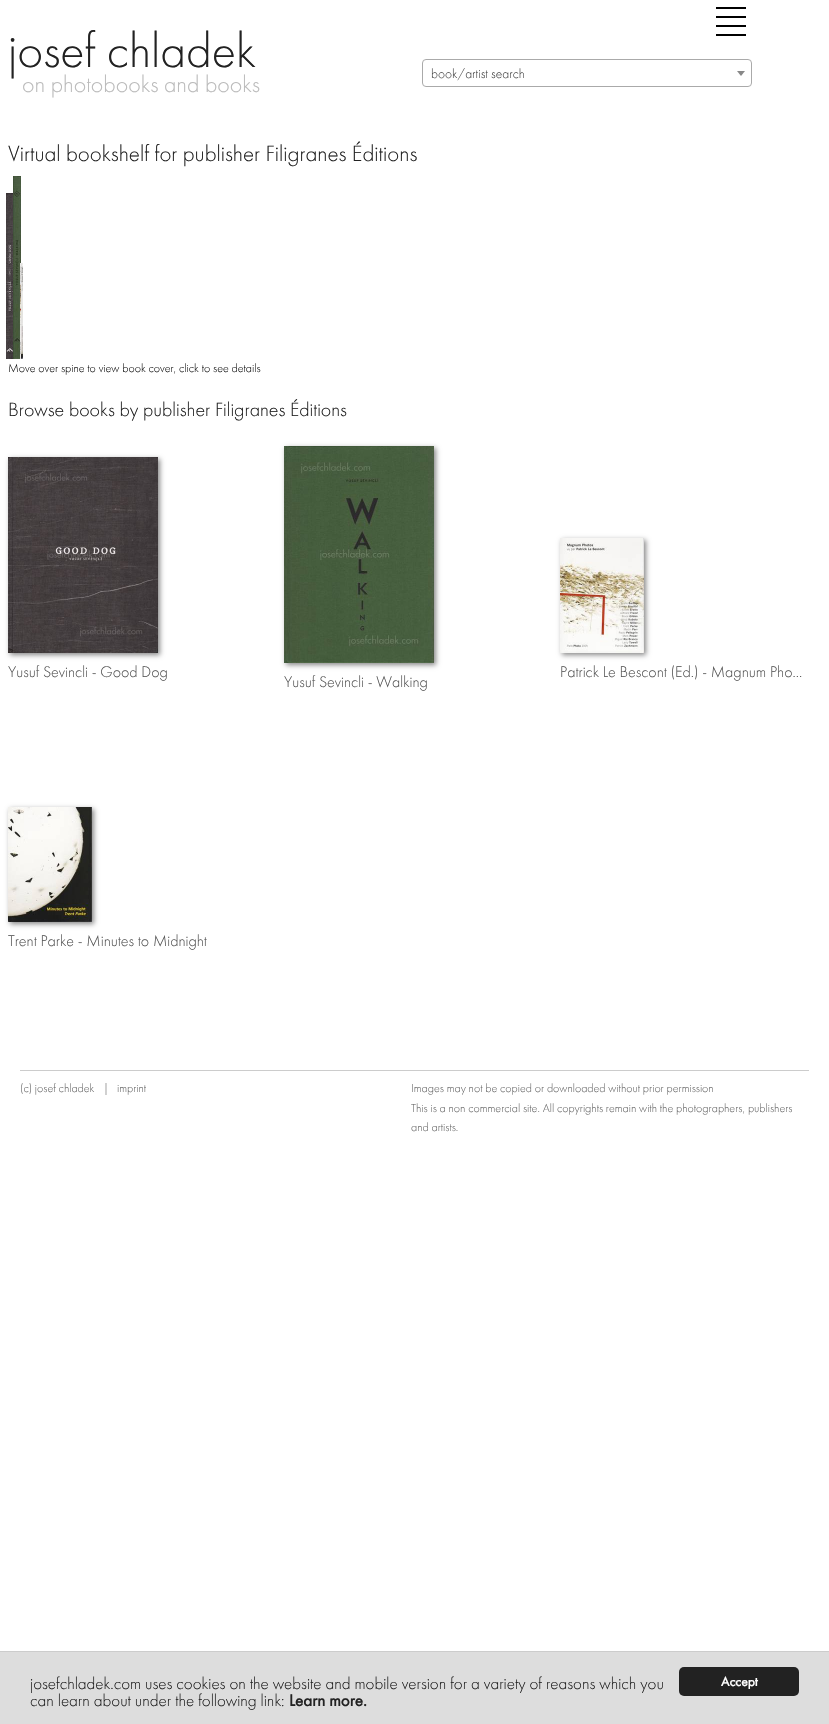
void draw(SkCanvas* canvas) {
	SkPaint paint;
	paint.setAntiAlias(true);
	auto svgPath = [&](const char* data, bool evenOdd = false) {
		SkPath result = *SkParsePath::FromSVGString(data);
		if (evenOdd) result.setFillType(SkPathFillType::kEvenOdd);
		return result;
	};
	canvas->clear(0xffffffff);
	SkFont f1(fontMgr->matchFamilyStyle("Futura PT", SkFontStyle(300, SkFontStyle::kNormal_Width, SkFontStyle::kUpright_Slant)), 50);
	f1.setSubpixel(true);
	paint.setColor(0xff222222);
	canvas->drawString("josef chladek", 8, 67, f1, paint);
	SkFont f2(fontMgr->matchFamilyStyle("Futura PT", SkFontStyle(300, SkFontStyle::kNormal_Width, SkFontStyle::kUpright_Slant)), 24);
	f2.setSubpixel(true);
	paint.setColor(0xffbbbbbb);
	canvas->drawString("on photobooks and books", 22, 92, f2, paint);
	paint.setColor(0xff000000);
	canvas->drawRect(SkRect::MakeXYWH(716, 34, 30, 2), paint);
	canvas->drawRect(SkRect::MakeXYWH(716, 25, 30, 2), paint);
	canvas->drawRect(SkRect::MakeXYWH(716, 16, 30, 2), paint);
	canvas->drawRect(SkRect::MakeXYWH(716, 7, 30, 2), paint);
	paint.setStroke(true);
	paint.setStrokeWidth(1);
	paint.setColor(0xffaaaaaa);
	canvas->drawRoundRect(SkRect::MakeXYWH(422.5, 59.5, 329, 27), 3.5, 3.5, paint);
	SkFont f3(fontMgr->matchFamilyStyle("Futura PT", SkFontStyle(300, SkFontStyle::kNormal_Width, SkFontStyle::kUpright_Slant)), 13.5);
	f3.setSubpixel(true);
	paint.setStroke(false);
	paint.setColor(0xff444444);
	canvas->drawString("book/artist search", 431, 78, f3, paint);
	paint.setColor(0xff888888);
	canvas->drawPath(svgPath("M737 71H745L741 76Z"), paint);
	SkFont f4(fontMgr->matchFamilyStyle("Futura PT", SkFontStyle(300, SkFontStyle::kNormal_Width, SkFontStyle::kUpright_Slant)), 23);
	f4.setSubpixel(true);
	paint.setColor(0xff222222);
	canvas->drawString("Virtual bookshelf for publisher Filigranes Éditions", 8, 161, f4, paint);
	canvas->drawImageRect(SkImages::DeferredFromEncodedData(SkData::MakeFromFileName("img1.png")), SkRect::MakeXYWH(6, 193, 7, 166), SkSamplingOptions());
	canvas->drawImageRect(SkImages::DeferredFromEncodedData(SkData::MakeFromFileName("img2.png")), SkRect::MakeXYWH(13, 176, 8, 183), SkSamplingOptions());
	canvas->drawImageRect(SkImages::DeferredFromEncodedData(SkData::MakeFromFileName("img3.png")), SkRect::MakeXYWH(20, 263, 1, 96), SkSamplingOptions());
	canvas->drawImageRect(SkImages::DeferredFromEncodedData(SkData::MakeFromFileName("img4.png")), SkRect::MakeXYWH(21, 263, 2, 96), SkSamplingOptions());
	SkFont f5(fontMgr->matchFamilyStyle("Futura PT", SkFontStyle(300, SkFontStyle::kNormal_Width, SkFontStyle::kUpright_Slant)), 12);
	f5.setSubpixel(true);
	paint.setColor(0xff0a0a0a);
	canvas->drawString("Move over spine to view book cover, click to see details", 8, 372, f5, paint);
	SkFont f6(fontMgr->matchFamilyStyle("Futura PT", SkFontStyle(300, SkFontStyle::kNormal_Width, SkFontStyle::kUpright_Slant)), 20);
	f6.setSubpixel(true);
	paint.setColor(0xff222222);
	canvas->drawString("Browse books by publisher Filigranes Éditions", 8, 416, f6, paint);
	paint.setColor(0xff888888);
	paint.setMaskFilter(SkMaskFilter::MakeBlur(kNormal_SkBlurStyle, 2.5));
	canvas->drawRect(SkRect::MakeXYWH(10, 459, 150, 196), paint);
	paint.setMaskFilter(nullptr);
	canvas->drawImageRect(SkImages::DeferredFromEncodedData(SkData::MakeFromFileName("img5.png")), SkRect::MakeXYWH(8, 457, 150, 196), SkSamplingOptions());
	SkFont f7(fontMgr->matchFamilyStyle("Futura PT", SkFontStyle(300, SkFontStyle::kNormal_Width, SkFontStyle::kUpright_Slant)), 16);
	f7.setSubpixel(true);
	paint.setColor(0xff555555);
	canvas->drawString("Yusuf Sevincli - Good Dog", 8, 677, f7, paint);
	paint.setColor(0xff888888);
	paint.setMaskFilter(SkMaskFilter::MakeBlur(kNormal_SkBlurStyle, 2.5));
	canvas->drawRect(SkRect::MakeXYWH(562, 540, 84, 115), paint);
	paint.setMaskFilter(nullptr);
	canvas->drawImageRect(SkImages::DeferredFromEncodedData(SkData::MakeFromFileName("img6.png")), SkRect::MakeXYWH(560, 538, 84, 115), SkSamplingOptions());
	paint.setColor(0xff555555);
	canvas->drawString("Patrick Le Bescont (Ed.) - Magnum Pho...", 560, 677, f7, paint);
	paint.setColor(0xff888888);
	paint.setMaskFilter(SkMaskFilter::MakeBlur(kNormal_SkBlurStyle, 2.5));
	canvas->drawRect(SkRect::MakeXYWH(286, 448, 150, 217), paint);
	paint.setMaskFilter(nullptr);
	canvas->drawImageRect(SkImages::DeferredFromEncodedData(SkData::MakeFromFileName("img7.png")), SkRect::MakeXYWH(284, 446, 150, 217), SkSamplingOptions());
	paint.setColor(0xff555555);
	canvas->drawString("Yusuf Sevincli - Walking", 284, 687, f7, paint);
	paint.setColor(0xff888888);
	paint.setMaskFilter(SkMaskFilter::MakeBlur(kNormal_SkBlurStyle, 2.5));
	canvas->drawRect(SkRect::MakeXYWH(10, 809, 84, 115), paint);
	paint.setMaskFilter(nullptr);
	canvas->drawImageRect(SkImages::DeferredFromEncodedData(SkData::MakeFromFileName("img8.png")), SkRect::MakeXYWH(8, 807, 84, 115), SkSamplingOptions());
	paint.setColor(0xff555555);
	canvas->drawString("Trent Parke - Minutes to Midnight", 8, 946, f7, paint);
	paint.setColor(0xffcccccc);
	canvas->drawRect(SkRect::MakeXYWH(20, 1070, 789, 1), paint);
	paint.setColor(0xff666666);
	canvas->drawString("(c) josef chladek", 20, 1092, f5, paint);
	canvas->drawString("|", 103, 1092, f5, paint);
	canvas->drawString("imprint", 117, 1092, f5, paint);
	canvas->drawString("Images may not be copied or downloaded without prior permission", 411, 1092, f5, paint);
	canvas->drawString("This is a non commercial site. All copyrights remain with the photographers, publishers", 411, 1112, f5, paint);
	canvas->drawString("and artists.", 411, 1131, f5, paint);
	paint.setColor(0xffdddddd);
	canvas->drawRect(SkRect::MakeXYWH(0, 1652, 829, 72), paint);
	paint.setColor(0xffcccccc);
	canvas->drawRect(SkRect::MakeXYWH(0, 1651, 829, 1), paint);
	SkFont f8(fontMgr->matchFamilyStyle("Futura PT", SkFontStyle(300, SkFontStyle::kNormal_Width, SkFontStyle::kUpright_Slant)), 17);
	f8.setSubpixel(true);
	paint.setColor(0xff222222);
	canvas->drawString("josefchladek.com uses cookies on the website and mobile version for a variety of reasons which you", 30, 1689, f8, paint);
	canvas->drawString("can learn about under the following link:", 30, 1706, f8, paint);
	SkFont f9(fontMgr->matchFamilyStyle("Futura PT", SkFontStyle::Bold()), 17);
	f9.setSubpixel(true);
	canvas->drawString("Learn more.", 289, 1706, f9, paint);
	canvas->drawRoundRect(SkRect::MakeXYWH(679, 1667, 120, 29), 5, 5, paint);
	SkFont f10(fontMgr->matchFamilyStyle("Futura PT", SkFontStyle::Bold()), 13.5);
	f10.setSubpixel(true);
	paint.setColor(0xffffffff);
	canvas->drawString("Accept", 721, 1686, f10, paint);
}
